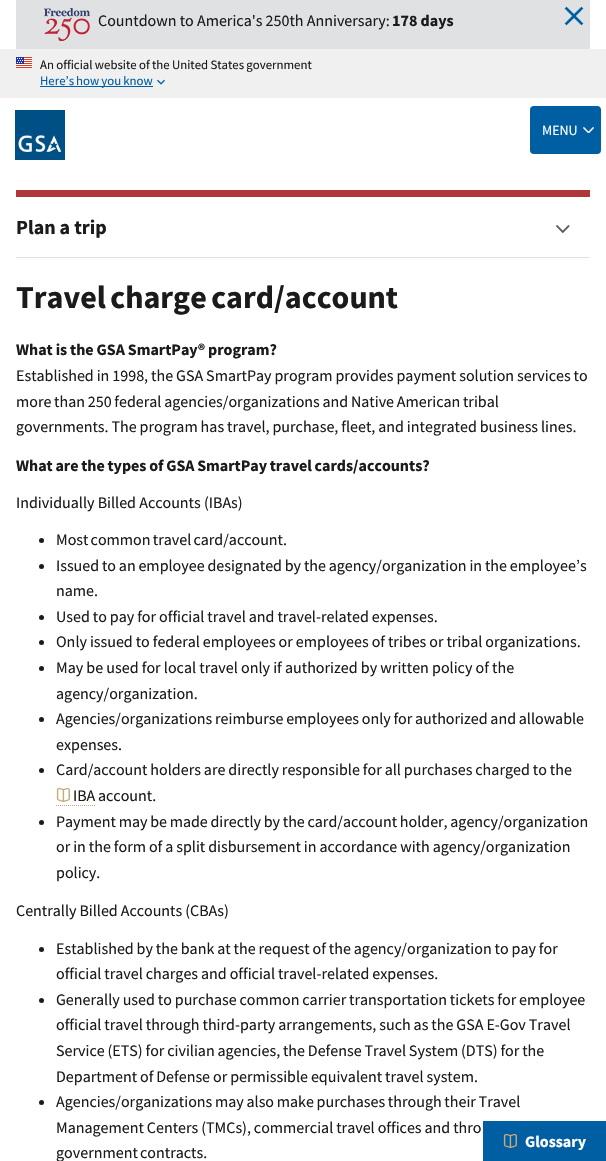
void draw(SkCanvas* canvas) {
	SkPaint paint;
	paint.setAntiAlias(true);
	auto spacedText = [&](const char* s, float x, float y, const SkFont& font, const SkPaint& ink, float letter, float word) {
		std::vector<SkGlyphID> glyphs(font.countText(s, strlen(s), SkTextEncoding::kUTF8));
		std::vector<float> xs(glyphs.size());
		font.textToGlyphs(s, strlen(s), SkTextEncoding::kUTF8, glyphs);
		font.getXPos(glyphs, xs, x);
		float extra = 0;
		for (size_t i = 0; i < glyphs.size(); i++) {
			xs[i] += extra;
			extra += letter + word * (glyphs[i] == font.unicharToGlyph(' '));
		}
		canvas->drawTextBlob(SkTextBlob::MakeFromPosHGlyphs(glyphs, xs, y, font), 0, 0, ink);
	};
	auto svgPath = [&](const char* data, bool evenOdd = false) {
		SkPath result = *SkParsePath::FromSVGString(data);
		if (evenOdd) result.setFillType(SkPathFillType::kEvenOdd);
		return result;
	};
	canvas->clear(0xffffffff);
	paint.setColor(0xffdfe1e2);
	canvas->drawRect(SkRect::MakeXYWH(16, 0, 574, 49), paint);
	canvas->drawImageRect(SkImages::DeferredFromEncodedData(SkData::MakeFromFileName("img1.png")), SkRect::MakeXYWH(44, 8, 46, 33), SkSamplingOptions());
	SkFont f1(fontMgr->matchFamilyStyle("Source Sans Pro", SkFontStyle::Normal()), 16);
	f1.setSubpixel(true);
	paint.setColor(0xff1b1b1b);
	canvas->drawString("Countdown to America's 250th Anniversary:", 98, 26, f1, paint);
	SkFont f2(fontMgr->matchFamilyStyle("Source Sans Pro", SkFontStyle::Bold()), 16);
	f2.setSubpixel(true);
	canvas->drawString("178 days", 392, 26, f2, paint);
	canvas->drawImageRect(SkImages::DeferredFromEncodedData(SkData::MakeFromFileName("img2.png")), SkRect::MakeXYWH(564, 6, 20, 20), SkSamplingOptions());
	paint.setColor(0xfff0f0f0);
	canvas->drawRect(SkRect::MakeXYWH(0, 49, 606, 49), paint);
	canvas->drawImageRect(SkImages::DeferredFromEncodedData(SkData::MakeFromFileName("img3.png")), SkRect::MakeXYWH(16, 57, 16, 11), SkSamplingOptions());
	SkFont f3(fontMgr->matchFamilyStyle("Source Sans Pro", SkFontStyle::Normal()), 12.8);
	f3.setSubpixel(true);
	paint.setColor(0xff1b1b1b);
	spacedText("An official website of the United States government", 40, 69, f3, paint, 0, -0.25);
	paint.setColor(0xff005ea2);
	canvas->drawRect(SkRect::MakeXYWH(40, 86, 113, 1), paint);
	spacedText("Here’s how you know", 40, 85, f3, paint, 0, -0.5);
	canvas->drawImageRect(SkImages::DeferredFromEncodedData(SkData::MakeFromFileName("img4.png")), SkRect::MakeXYWH(157, 79, 8, 6), SkSamplingOptions());
	canvas->drawImageRect(SkImages::DeferredFromEncodedData(SkData::MakeFromFileName("img5.png")), SkRect::MakeXYWH(15, 110, 50, 50), SkSamplingOptions());
	canvas->drawRoundRect(SkRect::MakeXYWH(530, 106, 71, 48), 4, 4, paint);
	canvas->drawImageRect(SkImages::DeferredFromEncodedData(SkData::MakeFromFileName("img6.png")), SkRect::MakeXYWH(583, 127, 11, 6), SkSamplingOptions());
	SkFont f4(fontMgr->matchFamilyStyle("Source Sans Pro", SkFontStyle::Normal()), 14);
	f4.setSubpixel(true);
	paint.setColor(0xffffffff);
	canvas->drawString("MENU", 542, 135, f4, paint);
	paint.setColor(0xffdfe1e2);
	canvas->drawRect(SkRect::MakeXYWH(16, 257, 574, 1), paint);
	canvas->drawImageRect(SkImages::DeferredFromEncodedData(SkData::MakeFromFileName("img7.png")), SkRect::MakeXYWH(556, 225, 14, 8), SkSamplingOptions());
	paint.setColor(0xffaf3639);
	canvas->drawRect(SkRect::MakeXYWH(16, 190, 574, 7), paint);
	SkFont f5(fontMgr->matchFamilyStyle("Source Sans Pro", SkFontStyle::Bold()), 20);
	f5.setSubpixel(true);
	paint.setColor(0xff1b1b1b);
	canvas->drawString("Plan a trip", 16, 234, f5, paint);
	SkFont f6(fontMgr->matchFamilyStyle("Source Sans Pro", SkFontStyle::Bold()), 32);
	f6.setSubpixel(true);
	spacedText("Travel charge card/account", 16, 308, f6, paint, 0, -2);
	spacedText("What is the GSA SmartPay® program?", 16, 355, f2, paint, 0, -0.25);
	spacedText("Established in 1998, the GSA SmartPay program provides payment solution services to", 16, 381, f1, paint, 0, -0.25);
	spacedText("more than 250 federal agencies/organizations and Native American tribal", 16, 407, f1, paint, 0, -0.5);
	spacedText("governments. The program has travel, purchase, fleet, and integrated business lines.", 16, 432, f1, paint, 0, -0.25);
	spacedText("What are the types of GSA SmartPay travel cards/accounts?", 16, 471, f2, paint, 0, -0.5);
	canvas->drawString("Individually Billed Accounts (IBAs)", 16, 508, f1, paint);
	canvas->drawCircle(41.5, 540.5, 2.5, paint);
	spacedText("Most common travel card/account.", 56, 545, f1, paint, 0, -1);
	canvas->drawCircle(41.5, 566.5, 2.5, paint);
	spacedText("Issued to an employee designated by the agency/organization in the employee’s", 56, 571, f1, paint, 0, -0.4);
	canvas->drawString("name.", 56, 596, f1, paint);
	canvas->drawCircle(41.5, 617.5, 2.5, paint);
	spacedText("Used to pay for official travel and travel-related expenses.", 56, 622, f1, paint, 0, -0.25);
	canvas->drawCircle(41.5, 642.5, 2.5, paint);
	spacedText("Only issued to federal employees or employees of tribes or tribal organizations.", 56, 647, f1, paint, 0, -0.25);
	canvas->drawCircle(41.5, 668.5, 2.5, paint);
	canvas->drawString("May be used for local travel only if authorized by written policy of the", 56, 673, f1, paint);
	canvas->drawString("agency/organization.", 56, 699, f1, paint);
	canvas->drawCircle(41.5, 719.5, 2.5, paint);
	spacedText("Agencies/organizations reimburse employees only for authorized and allowable", 56, 724, f1, paint, 0, -0.5);
	canvas->drawString("expenses.", 56, 750, f1, paint);
	canvas->drawCircle(41.5, 770.5, 2.5, paint);
	spacedText("Card/account holders are directly responsible for all purchases charged to the", 56, 775, f1, paint, 0, -0.25);
	canvas->drawImageRect(SkImages::DeferredFromEncodedData(SkData::MakeFromFileName("img8.png")), SkRect::MakeXYWH(56, 787, 14, 16), SkSamplingOptions());
	canvas->drawString("IBA", 73, 801, f1, paint);
	paint.setStroke(true);
	paint.setStrokeWidth(1);
	paint.setColor(0xffc7a97b);
	paint.setPathEffect(SkDashPathEffect::Make({{1, 1}}, 0));
	canvas->drawPath(svgPath("M56 805.5H95"), paint);
	paint.setPathEffect(nullptr);
	paint.setStroke(false);
	paint.setColor(0xff1b1b1b);
	canvas->drawString("account.", 98, 801, f1, paint);
	canvas->drawCircle(41.5, 822.5, 2.5, paint);
	spacedText("Payment may be made directly by the card/account holder, agency/organization", 56, 827, f1, paint, 0, -0.5);
	spacedText("or in the form of a split disbursement in accordance with agency/organization", 56, 852, f1, paint, 0, -0.25);
	canvas->drawString("policy.", 56, 878, f1, paint);
	spacedText("Centrally Billed Accounts (CBAs)", 16, 916, f1, paint, 0, -0.25);
	canvas->drawCircle(41.5, 949.5, 2.5, paint);
	spacedText("Established by the bank at the request of the agency/organization to pay for", 56, 954, f1, paint, 0, -0.3);
	spacedText("official travel charges and official travel-related expenses.", 56, 979, f1, paint, 0, -0.25);
	canvas->drawCircle(41.5, 1000.5, 2.5, paint);
	spacedText("Generally used to purchase common carrier transportation tickets for employee", 56, 1005, f1, paint, 0, -0.3);
	spacedText("official travel through third-party arrangements, such as the GSA E-Gov Travel", 56, 1030, f1, paint, 0, -0.25);
	spacedText("Service (ETS) for civilian agencies, the Defense Travel System (DTS) for the", 56, 1056, f1, paint, 0, -0.4);
	spacedText("Department of Defense or permissible equivalent travel system.", 56, 1082, f1, paint, 0, -0.25);
	canvas->drawCircle(41.5, 1102.5, 2.5, paint);
	spacedText("Agencies/organizations may also make purchases through their Travel", 56, 1107, f1, paint, 0, -0.5);
	spacedText("Management Centers (TMCs), commercial travel offices and thro", 56, 1133, f1, paint, 0, -0.25);
	spacedText("government contracts.", 56, 1158, f1, paint, 0, -1);
	paint.setColor(0xff005ea2);
	canvas->drawRect(SkRect::MakeXYWH(483, 1121, 123, 40), paint);
	canvas->drawImageRect(SkImages::DeferredFromEncodedData(SkData::MakeFromFileName("img9.png")), SkRect::MakeXYWH(503, 1133, 14, 16), SkSamplingOptions());
	paint.setColor(0xffffffff);
	canvas->drawString("Glossary", 525, 1147, f2, paint);
}
